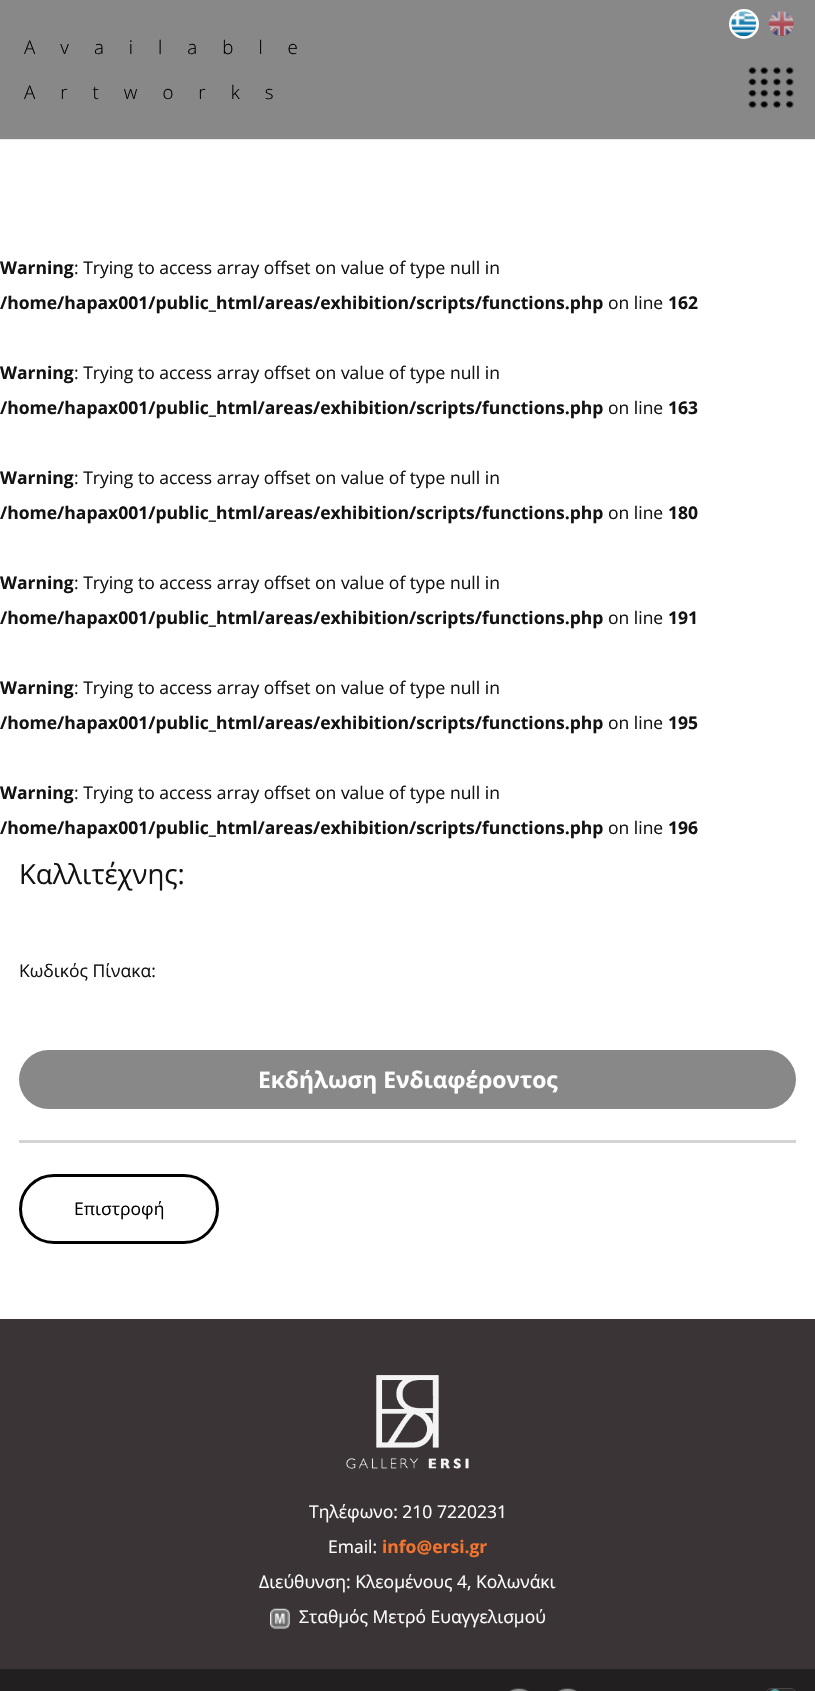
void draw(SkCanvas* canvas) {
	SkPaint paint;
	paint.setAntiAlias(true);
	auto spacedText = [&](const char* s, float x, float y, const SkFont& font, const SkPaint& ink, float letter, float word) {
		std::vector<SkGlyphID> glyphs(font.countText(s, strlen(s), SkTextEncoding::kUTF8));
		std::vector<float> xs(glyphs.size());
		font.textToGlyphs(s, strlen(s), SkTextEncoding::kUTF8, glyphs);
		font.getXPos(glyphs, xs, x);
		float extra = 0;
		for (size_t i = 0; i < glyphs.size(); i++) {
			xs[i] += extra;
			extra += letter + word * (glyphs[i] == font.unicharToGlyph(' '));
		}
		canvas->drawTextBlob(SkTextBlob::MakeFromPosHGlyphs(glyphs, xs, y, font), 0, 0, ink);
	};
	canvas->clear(0xff888888);
	paint.setColor(0xffeaeaea);
	canvas->drawRect(SkRect::MakeXYWH(0, 139, 815, 1), paint);
	paint.setStroke(true);
	paint.setStrokeWidth(3);
	paint.setColor(0xffffffff);
	canvas->drawCircle(744, 24, 13.5, paint);
	canvas->drawImageRect(SkImages::DeferredFromEncodedData(SkData::MakeFromFileName("img1.png")), SkRect::MakeXYWH(731, 11, 26, 26), SkSamplingOptions());
	canvas->drawImageRect(SkImages::DeferredFromEncodedData(SkData::MakeFromFileName("img2.png")), SkRect::MakeXYWH(768, 11, 26, 25), SkSamplingOptions());
	SkFont f1(fontMgr->matchFamilyStyle("Open Sans", SkFontStyle(300, SkFontStyle::kNormal_Width, SkFontStyle::kUpright_Slant)), 18.75);
	f1.setSubpixel(true);
	paint.setStroke(false);
	paint.setColor(0xff000000);
	spacedText("Available", 24, 54, f1, paint, 25, 0);
	spacedText("Artworks", 24, 99, f1, paint, 25, 0);
	canvas->drawImageRect(SkImages::DeferredFromEncodedData(SkData::MakeFromFileName("img3.png")), SkRect::MakeXYWH(748, 67, 46, 41), SkSamplingOptions());
	paint.setColor(0xffffffff);
	canvas->drawRect(SkRect::MakeXYWH(0, 140, 815, 1179), paint);
	SkFont f2(fontMgr->matchFamilyStyle("Open Sans", SkFontStyle::Bold()), 17.5);
	f2.setSubpixel(true);
	paint.setColor(0xff131313);
	canvas->drawString("Warning", 0, 274, f2, paint);
	SkFont f3(fontMgr->matchFamilyStyle("Open Sans", SkFontStyle::Normal()), 17.5);
	f3.setSubpixel(true);
	canvas->drawString(": Trying to access array offset on value of type null in", 74, 274, f3, paint);
	canvas->drawString("/home/hapax001/public_html/areas/exhibition/scripts/functions.php", 0, 309, f2, paint);
	canvas->drawString("on line", 608, 309, f3, paint);
	canvas->drawString("162", 668, 309, f2, paint);
	canvas->drawString("Warning", 0, 379, f2, paint);
	canvas->drawString(": Trying to access array offset on value of type null in", 74, 379, f3, paint);
	canvas->drawString("/home/hapax001/public_html/areas/exhibition/scripts/functions.php", 0, 414, f2, paint);
	canvas->drawString("on line", 608, 414, f3, paint);
	canvas->drawString("163", 668, 414, f2, paint);
	canvas->drawString("Warning", 0, 484, f2, paint);
	canvas->drawString(": Trying to access array offset on value of type null in", 74, 484, f3, paint);
	canvas->drawString("/home/hapax001/public_html/areas/exhibition/scripts/functions.php", 0, 519, f2, paint);
	canvas->drawString("on line", 608, 519, f3, paint);
	canvas->drawString("180", 668, 519, f2, paint);
	canvas->drawString("Warning", 0, 589, f2, paint);
	canvas->drawString(": Trying to access array offset on value of type null in", 74, 589, f3, paint);
	canvas->drawString("/home/hapax001/public_html/areas/exhibition/scripts/functions.php", 0, 624, f2, paint);
	canvas->drawString("on line", 608, 624, f3, paint);
	canvas->drawString("191", 668, 624, f2, paint);
	canvas->drawString("Warning", 0, 694, f2, paint);
	canvas->drawString(": Trying to access array offset on value of type null in", 74, 694, f3, paint);
	canvas->drawString("/home/hapax001/public_html/areas/exhibition/scripts/functions.php", 0, 729, f2, paint);
	canvas->drawString("on line", 608, 729, f3, paint);
	canvas->drawString("195", 668, 729, f2, paint);
	canvas->drawString("Warning", 0, 799, f2, paint);
	canvas->drawString(": Trying to access array offset on value of type null in", 74, 799, f3, paint);
	canvas->drawString("/home/hapax001/public_html/areas/exhibition/scripts/functions.php", 0, 834, f2, paint);
	canvas->drawString("on line", 608, 834, f3, paint);
	canvas->drawString("196", 668, 834, f2, paint);
	SkFont f4(fontMgr->matchFamilyStyle("Open Sans", SkFontStyle::Normal()), 27.5);
	f4.setSubpixel(true);
	canvas->drawString("Καλλιτέχνης:", 19, 884, f4, paint);
	canvas->drawString("Κωδικός Πίνακα:", 19, 977, f3, paint);
	paint.setColor(0xff888888);
	canvas->drawRoundRect(SkRect::MakeXYWH(19, 1050, 777, 59), 29.5, 29.5, paint);
	SkFont f5(fontMgr->matchFamilyStyle("Open Sans", SkFontStyle::Bold()), 22.75);
	f5.setSubpixel(true);
	paint.setColor(0xffffffff);
	canvas->drawString("Εκδήλωση Ενδιαφέροντος", 258, 1088, f5, paint);
	paint.setColor(0xffd3d3d3);
	canvas->drawRect(SkRect::MakeXYWH(19, 1140, 777, 3), paint);
	paint.setStroke(true);
	paint.setColor(0xff000000);
	canvas->drawRoundRect(SkRect::MakeXYWH(20.5, 1175.5, 197, 67), 33.5, 33.5, paint);
	paint.setStroke(false);
	canvas->drawString("Επιστροφή", 74, 1215, f3, paint);
	paint.setColor(0xff3a3436);
	canvas->drawRect(SkRect::MakeXYWH(0, 1319, 815, 350), paint);
	canvas->drawImageRect(SkImages::DeferredFromEncodedData(SkData::MakeFromFileName("img4.png")), SkRect::MakeXYWH(346, 1375, 123, 94), SkSamplingOptions());
	paint.setColor(0xffffffff);
	canvas->drawString("Τηλέφωνο: 210 7220231", 309, 1518, f3, paint);
	canvas->drawString("Email:", 328, 1553, f3, paint);
	paint.setColor(0xfff3742d);
	canvas->drawString("info@ersi.gr", 382, 1553, f2, paint);
	paint.setColor(0xffffffff);
	canvas->drawString("Διεύθυνση: Κλεομένους 4, Κολωνάκι", 259, 1588, f3, paint);
	canvas->drawImageRect(SkImages::DeferredFromEncodedData(SkData::MakeFromFileName("img5.png")), SkRect::MakeXYWH(270, 1608, 20, 21), SkSamplingOptions());
	canvas->drawString("Σταθμός Μετρό Ευαγγελισμού", 299, 1623, f3, paint);
	paint.setColor(0xff221f20);
	canvas->drawRect(SkRect::MakeXYWH(0, 1669, 815, 22), paint);
	canvas->drawImageRect(SkImages::DeferredFromEncodedData(SkData::MakeFromFileName("img6.png")), SkRect::MakeXYWH(509, 1688, 20, 3), SkSamplingOptions());
	canvas->drawImageRect(SkImages::DeferredFromEncodedData(SkData::MakeFromFileName("img7.png")), SkRect::MakeXYWH(558, 1688, 19, 3), SkSamplingOptions());
	paint.setStroke(true);
	paint.setStrokeWidth(1);
	paint.setColor(0xff4b4547);
	canvas->drawRoundRect(SkRect::MakeXYWH(766.5, 1688.5, 29, 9), 5.5, 5.5, paint);
	canvas->drawImageRect(SkImages::DeferredFromEncodedData(SkData::MakeFromFileName("img8.png")), SkRect::MakeXYWH(768, 1688, 26, 3), SkSamplingOptions());
}
